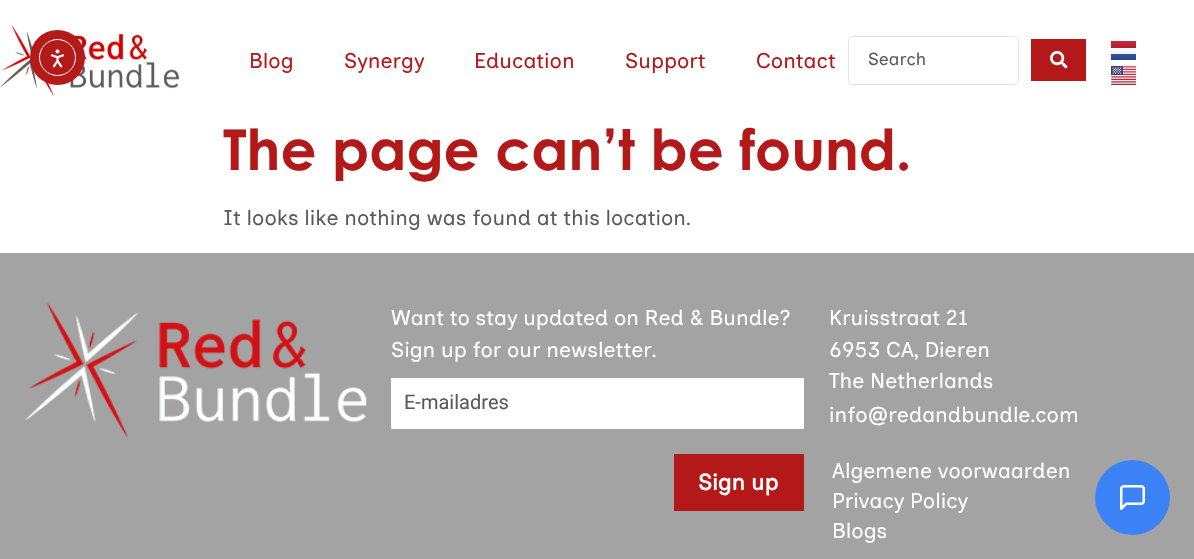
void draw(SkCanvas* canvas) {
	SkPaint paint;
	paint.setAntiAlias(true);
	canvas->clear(0xffffffff);
	canvas->drawImageRect(SkImages::DeferredFromEncodedData(SkData::MakeFromFileName("img2.png")), SkRect::MakeXYWH(0, 25, 179, 72), SkSamplingOptions());
	paint.setColor(0xffb41a19);
	canvas->drawCircle(57.5, 57.5, 27.5, paint);
	paint.setStroke(true);
	paint.setStrokeWidth(1);
	paint.setColor(0xffffffff);
	canvas->drawCircle(57.5, 57.5, 18, paint);
	canvas->drawImageRect(SkImages::DeferredFromEncodedData(SkData::MakeFromFileName("img1.png")), SkRect::MakeXYWH(50, 49, 14, 19), SkSamplingOptions());
	SkFont f1(fontMgr->matchFamilyStyle("Inclusive Sans", SkFontStyle::Normal()), 21.25);
	f1.setSubpixel(true);
	paint.setStroke(false);
	paint.setColor(0xffb41919);
	canvas->drawString("Blog", 249, 68, f1, paint);
	canvas->drawString("Synergy", 344, 68, f1, paint);
	canvas->drawString("Education", 474, 68, f1, paint);
	canvas->drawString("Support", 625, 68, f1, paint);
	canvas->drawString("Contact", 756, 68, f1, paint);
	paint.setStroke(true);
	paint.setColor(0xffe1e5eb);
	canvas->drawRoundRect(SkRect::MakeXYWH(848.5, 36.5, 170, 48), 3.5, 3.5, paint);
	SkFont f2(fontMgr->matchFamilyStyle("Inclusive Sans", SkFontStyle::Normal()), 17.5);
	f2.setSubpixel(true);
	paint.setStroke(false);
	paint.setColor(0xff5c5b5b);
	canvas->drawString("Search", 868, 65, f2, paint);
	paint.setColor(0xffb41919);
	canvas->drawRect(SkRect::MakeXYWH(1031, 39, 55, 42), paint);
	canvas->drawImageRect(SkImages::DeferredFromEncodedData(SkData::MakeFromFileName("img3.png")), SkRect::MakeXYWH(1050, 50, 18, 19), SkSamplingOptions());
	{
		const SkColor colors[] = {0xffca2b39, 0xffac1f2c};
		const float stops[] = {0, 1};
		const SkPoint ends[] = {{1124, 41}, {1124, 48}};
		paint.setShader(SkGradientShader::MakeLinear(ends, colors, stops, 2, SkTileMode::kClamp));
		paint.setAlpha(255);
	}
	canvas->drawRect(SkRect::MakeXYWH(1111, 41, 25, 7), paint);
	{
		const SkColor colors[] = {0xffffffff, 0xfff0f0f0};
		const float stops[] = {0, 1};
		const SkPoint ends[] = {{1124, 48}, {1124, 54}};
		paint.setShader(SkGradientShader::MakeLinear(ends, colors, stops, 2, SkTileMode::kClamp));
		paint.setAlpha(255);
	}
	canvas->drawRect(SkRect::MakeXYWH(1111, 49, 25, 5), paint);
	{
		const SkColor colors[] = {0xff2c56a2, 0xff244889};
		const float stops[] = {0, 1};
		const SkPoint ends[] = {{1124, 54}, {1124, 60}};
		paint.setShader(SkGradientShader::MakeLinear(ends, colors, stops, 2, SkTileMode::kClamp));
		paint.setAlpha(255);
	}
	canvas->drawRect(SkRect::MakeXYWH(1111, 54, 25, 6), paint);
	canvas->drawImageRect(SkImages::DeferredFromEncodedData(SkData::MakeFromFileName("img4.png")), SkRect::MakeXYWH(1111, 66, 25, 19), SkSamplingOptions());
	SkFont f3(fontMgr->matchFamilyStyle("Century Gothic", SkFontStyle::Bold()), 56.25);
	f3.setSubpixel(true);
	paint.setShader(nullptr);
	paint.setColor(0xffb41919);
	canvas->drawString("The page can’t be found.", 223, 170, f3, paint);
	paint.setColor(0xff5c5b5b);
	canvas->drawString("It looks like nothing was found at this location.", 223, 225, f1, paint);
	paint.setColor(0xffa3a3a3);
	canvas->drawRect(SkRect::MakeXYWH(0, 253, 1194, 306), paint);
	canvas->drawImageRect(SkImages::DeferredFromEncodedData(SkData::MakeFromFileName("img5.png")), SkRect::MakeXYWH(25, 302, 342, 136), SkSamplingOptions());
	paint.setColor(0xffffffff);
	canvas->drawString("Want to stay updated on Red & Bundle?", 391, 325, f1, paint);
	canvas->drawString("Sign up for our newsletter.", 391, 357, f1, paint);
	canvas->drawRect(SkRect::MakeXYWH(391, 378, 413, 51), paint);
	SkFont f4(fontMgr->matchFamilyStyle("Roboto", SkFontStyle::Normal()), 20);
	f4.setSubpixel(true);
	paint.setColor(0xff5c5b5b);
	canvas->drawString("E-mailadres", 404, 409, f4, paint);
	paint.setColor(0xffb41919);
	canvas->drawRect(SkRect::MakeXYWH(674, 454, 130, 57), paint);
	SkFont f5(fontMgr->matchFamilyStyle("Inclusive Sans", SkFontStyle::Bold()), 22.5);
	f5.setSubpixel(true);
	paint.setColor(0xffffffff);
	canvas->drawString("Sign up", 698, 490, f5, paint);
	canvas->drawString("Kruisstraat 21", 829, 325, f1, paint);
	canvas->drawString("6953 CA, Dieren", 829, 357, f1, paint);
	canvas->drawString("The Netherlands", 829, 388, f1, paint);
	canvas->drawString("info@redandbundle.com", 829, 422, f1, paint);
	canvas->drawString("Algemene voorwaarden", 832, 478, f1, paint);
	canvas->drawString("Privacy Policy", 832, 508, f1, paint);
	canvas->drawString("Blogs", 832, 538, f1, paint);
	paint.setColor(0xff3b82f6);
	canvas->drawCircle(1132.5, 497.5, 37.5, paint);
	canvas->drawImageRect(SkImages::DeferredFromEncodedData(SkData::MakeFromFileName("img6.png")), SkRect::MakeXYWH(1120, 485, 25, 25), SkSamplingOptions());
}
